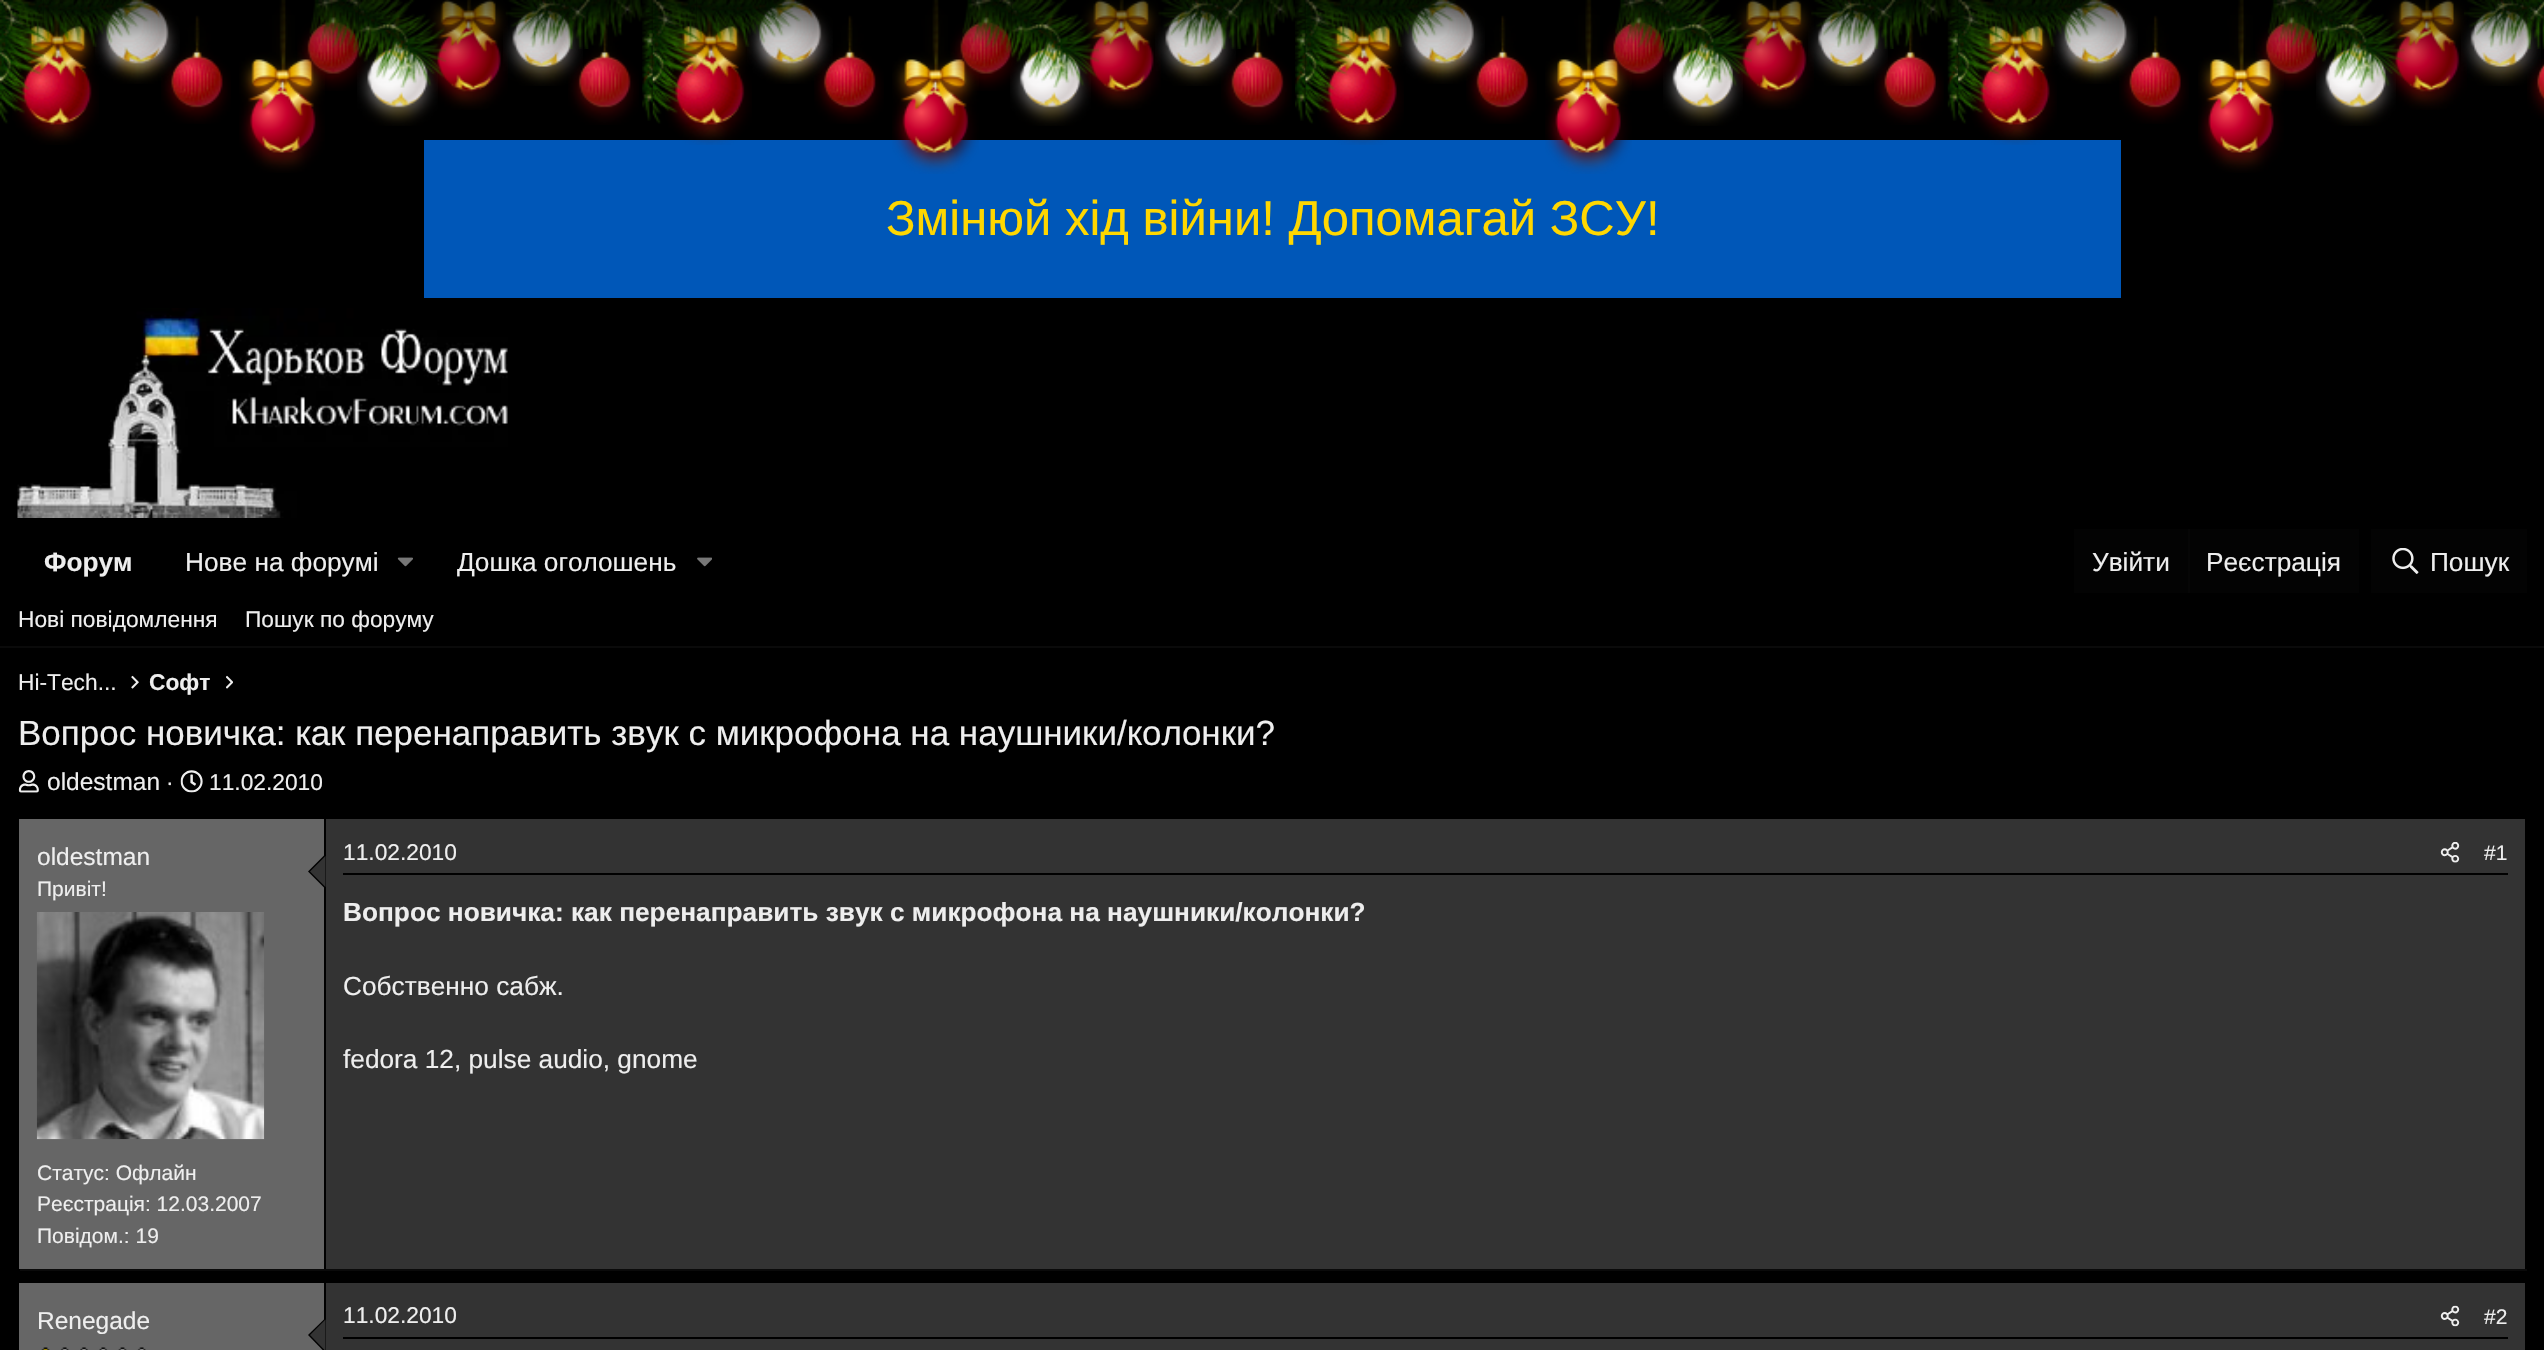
void draw(SkCanvas* canvas) {
	SkPaint paint;
	paint.setAntiAlias(true);
	auto svgPath = [&](const char* data, bool evenOdd = false) {
		SkPath result = *SkParsePath::FromSVGString(data);
		if (evenOdd) result.setFillType(SkPathFillType::kEvenOdd);
		return result;
	};
	canvas->clear(0xff000000);
	canvas->drawImageRect(SkImages::DeferredFromEncodedData(SkData::MakeFromFileName("img2.png")), SkRect::MakeXYWH(12, 0, 87, 145), SkSamplingOptions());
	canvas->drawImageRect(SkImages::DeferredFromEncodedData(SkData::MakeFromFileName("img1.png")), SkRect::MakeXYWH(0, 0, 44, 124), SkSamplingOptions());
	canvas->drawImageRect(SkImages::DeferredFromEncodedData(SkData::MakeFromFileName("img4.png")), SkRect::MakeXYWH(95, 0, 85, 84), SkSamplingOptions());
	canvas->drawImageRect(SkImages::DeferredFromEncodedData(SkData::MakeFromFileName("img3.png")), SkRect::MakeXYWH(43, 0, 108, 47), SkSamplingOptions());
	canvas->drawImageRect(SkImages::DeferredFromEncodedData(SkData::MakeFromFileName("img5.png")), SkRect::MakeXYWH(239, 0, 86, 173), SkSamplingOptions());
	canvas->drawImageRect(SkImages::DeferredFromEncodedData(SkData::MakeFromFileName("img6.png")), SkRect::MakeXYWH(297, 0, 71, 91), SkSamplingOptions());
	canvas->drawImageRect(SkImages::DeferredFromEncodedData(SkData::MakeFromFileName("img12.png")), SkRect::MakeXYWH(357, 10, 81, 116), SkSamplingOptions());
	canvas->drawImageRect(SkImages::DeferredFromEncodedData(SkData::MakeFromFileName("img7.png")), SkRect::MakeXYWH(309, 0, 50, 54), SkSamplingOptions());
	canvas->drawImageRect(SkImages::DeferredFromEncodedData(SkData::MakeFromFileName("img9.png")), SkRect::MakeXYWH(427, 0, 81, 110), SkSamplingOptions());
	canvas->drawImageRect(SkImages::DeferredFromEncodedData(SkData::MakeFromFileName("img8.png")), SkRect::MakeXYWH(358, 0, 89, 88), SkSamplingOptions());
	canvas->drawImageRect(SkImages::DeferredFromEncodedData(SkData::MakeFromFileName("img10.png")), SkRect::MakeXYWH(503, 0, 80, 86), SkSamplingOptions());
	canvas->drawImageRect(SkImages::DeferredFromEncodedData(SkData::MakeFromFileName("img11.png")), SkRect::MakeXYWH(161, 15, 70, 109), SkSamplingOptions());
	canvas->drawImageRect(SkImages::DeferredFromEncodedData(SkData::MakeFromFileName("img15.png")), SkRect::MakeXYWH(568, 17, 71, 108), SkSamplingOptions());
	canvas->drawImageRect(SkImages::DeferredFromEncodedData(SkData::MakeFromFileName("img13.png")), SkRect::MakeXYWH(505, 0, 138, 49), SkSamplingOptions());
	canvas->drawImageRect(SkImages::DeferredFromEncodedData(SkData::MakeFromFileName("img14.png")), SkRect::MakeXYWH(642, 0, 11, 121), SkSamplingOptions());
	paint.setColor(0xff0057b8);
	canvas->drawRect(SkRect::MakeXYWH(424, 140, 1697, 158), paint);
	canvas->drawImageRect(SkImages::DeferredFromEncodedData(SkData::MakeFromFileName("img17.png")), SkRect::MakeXYWH(665, 0, 87, 145), SkSamplingOptions());
	canvas->drawImageRect(SkImages::DeferredFromEncodedData(SkData::MakeFromFileName("img16.png")), SkRect::MakeXYWH(652, 0, 45, 124), SkSamplingOptions());
	canvas->drawImageRect(SkImages::DeferredFromEncodedData(SkData::MakeFromFileName("img19.png")), SkRect::MakeXYWH(747, 0, 86, 84), SkSamplingOptions());
	canvas->drawImageRect(SkImages::DeferredFromEncodedData(SkData::MakeFromFileName("img18.png")), SkRect::MakeXYWH(696, 0, 107, 47), SkSamplingOptions());
	canvas->drawImageRect(SkImages::DeferredFromEncodedData(SkData::MakeFromFileName("img20.png")), SkRect::MakeXYWH(892, 0, 87, 174), SkSamplingOptions());
	canvas->drawImageRect(SkImages::DeferredFromEncodedData(SkData::MakeFromFileName("img21.png")), SkRect::MakeXYWH(950, 0, 70, 91), SkSamplingOptions());
	canvas->drawImageRect(SkImages::DeferredFromEncodedData(SkData::MakeFromFileName("img27.png")), SkRect::MakeXYWH(1010, 10, 81, 116), SkSamplingOptions());
	canvas->drawImageRect(SkImages::DeferredFromEncodedData(SkData::MakeFromFileName("img22.png")), SkRect::MakeXYWH(962, 0, 50, 54), SkSamplingOptions());
	canvas->drawImageRect(SkImages::DeferredFromEncodedData(SkData::MakeFromFileName("img24.png")), SkRect::MakeXYWH(1080, 0, 81, 110), SkSamplingOptions());
	canvas->drawImageRect(SkImages::DeferredFromEncodedData(SkData::MakeFromFileName("img23.png")), SkRect::MakeXYWH(1011, 0, 88, 88), SkSamplingOptions());
	canvas->drawImageRect(SkImages::DeferredFromEncodedData(SkData::MakeFromFileName("img25.png")), SkRect::MakeXYWH(1155, 0, 81, 86), SkSamplingOptions());
	canvas->drawImageRect(SkImages::DeferredFromEncodedData(SkData::MakeFromFileName("img26.png")), SkRect::MakeXYWH(814, 15, 70, 109), SkSamplingOptions());
	canvas->drawImageRect(SkImages::DeferredFromEncodedData(SkData::MakeFromFileName("img30.png")), SkRect::MakeXYWH(1221, 17, 71, 108), SkSamplingOptions());
	canvas->drawImageRect(SkImages::DeferredFromEncodedData(SkData::MakeFromFileName("img28.png")), SkRect::MakeXYWH(1158, 0, 137, 49), SkSamplingOptions());
	canvas->drawImageRect(SkImages::DeferredFromEncodedData(SkData::MakeFromFileName("img29.png")), SkRect::MakeXYWH(1295, 0, 11, 121), SkSamplingOptions());
	canvas->drawImageRect(SkImages::DeferredFromEncodedData(SkData::MakeFromFileName("img32.png")), SkRect::MakeXYWH(1317, 0, 87, 145), SkSamplingOptions());
	canvas->drawImageRect(SkImages::DeferredFromEncodedData(SkData::MakeFromFileName("img31.png")), SkRect::MakeXYWH(1305, 0, 45, 124), SkSamplingOptions());
	canvas->drawImageRect(SkImages::DeferredFromEncodedData(SkData::MakeFromFileName("img34.png")), SkRect::MakeXYWH(1400, 0, 85, 84), SkSamplingOptions());
	canvas->drawImageRect(SkImages::DeferredFromEncodedData(SkData::MakeFromFileName("img33.png")), SkRect::MakeXYWH(1349, 0, 107, 47), SkSamplingOptions());
	canvas->drawImageRect(SkImages::DeferredFromEncodedData(SkData::MakeFromFileName("img35.png")), SkRect::MakeXYWH(1545, 0, 87, 174), SkSamplingOptions());
	canvas->drawImageRect(SkImages::DeferredFromEncodedData(SkData::MakeFromFileName("img36.png")), SkRect::MakeXYWH(1603, 0, 70, 91), SkSamplingOptions());
	canvas->drawImageRect(SkImages::DeferredFromEncodedData(SkData::MakeFromFileName("img42.png")), SkRect::MakeXYWH(1663, 10, 80, 116), SkSamplingOptions());
	canvas->drawImageRect(SkImages::DeferredFromEncodedData(SkData::MakeFromFileName("img37.png")), SkRect::MakeXYWH(1615, 0, 50, 54), SkSamplingOptions());
	canvas->drawImageRect(SkImages::DeferredFromEncodedData(SkData::MakeFromFileName("img39.png")), SkRect::MakeXYWH(1732, 0, 82, 110), SkSamplingOptions());
	canvas->drawImageRect(SkImages::DeferredFromEncodedData(SkData::MakeFromFileName("img38.png")), SkRect::MakeXYWH(1664, 0, 88, 88), SkSamplingOptions());
	canvas->drawImageRect(SkImages::DeferredFromEncodedData(SkData::MakeFromFileName("img40.png")), SkRect::MakeXYWH(1808, 0, 80, 86), SkSamplingOptions());
	canvas->drawImageRect(SkImages::DeferredFromEncodedData(SkData::MakeFromFileName("img41.png")), SkRect::MakeXYWH(1466, 15, 71, 109), SkSamplingOptions());
	canvas->drawImageRect(SkImages::DeferredFromEncodedData(SkData::MakeFromFileName("img45.png")), SkRect::MakeXYWH(1874, 17, 70, 108), SkSamplingOptions());
	canvas->drawImageRect(SkImages::DeferredFromEncodedData(SkData::MakeFromFileName("img43.png")), SkRect::MakeXYWH(1811, 0, 137, 49), SkSamplingOptions());
	canvas->drawImageRect(SkImages::DeferredFromEncodedData(SkData::MakeFromFileName("img44.png")), SkRect::MakeXYWH(1947, 0, 12, 121), SkSamplingOptions());
	canvas->drawImageRect(SkImages::DeferredFromEncodedData(SkData::MakeFromFileName("img47.png")), SkRect::MakeXYWH(1970, 0, 87, 145), SkSamplingOptions());
	canvas->drawImageRect(SkImages::DeferredFromEncodedData(SkData::MakeFromFileName("img46.png")), SkRect::MakeXYWH(1958, 0, 44, 124), SkSamplingOptions());
	canvas->drawImageRect(SkImages::DeferredFromEncodedData(SkData::MakeFromFileName("img49.png")), SkRect::MakeXYWH(2053, 0, 85, 84), SkSamplingOptions());
	canvas->drawImageRect(SkImages::DeferredFromEncodedData(SkData::MakeFromFileName("img48.png")), SkRect::MakeXYWH(2002, 0, 107, 47), SkSamplingOptions());
	canvas->drawImageRect(SkImages::DeferredFromEncodedData(SkData::MakeFromFileName("img50.png")), SkRect::MakeXYWH(2198, 0, 86, 173), SkSamplingOptions());
	canvas->drawImageRect(SkImages::DeferredFromEncodedData(SkData::MakeFromFileName("img51.png")), SkRect::MakeXYWH(2255, 0, 71, 91), SkSamplingOptions());
	canvas->drawImageRect(SkImages::DeferredFromEncodedData(SkData::MakeFromFileName("img57.png")), SkRect::MakeXYWH(2316, 10, 80, 116), SkSamplingOptions());
	canvas->drawImageRect(SkImages::DeferredFromEncodedData(SkData::MakeFromFileName("img52.png")), SkRect::MakeXYWH(2267, 0, 50, 54), SkSamplingOptions());
	canvas->drawImageRect(SkImages::DeferredFromEncodedData(SkData::MakeFromFileName("img54.png")), SkRect::MakeXYWH(2384, 0, 83, 110), SkSamplingOptions());
	canvas->drawImageRect(SkImages::DeferredFromEncodedData(SkData::MakeFromFileName("img53.png")), SkRect::MakeXYWH(2317, 0, 88, 88), SkSamplingOptions());
	canvas->drawImageRect(SkImages::DeferredFromEncodedData(SkData::MakeFromFileName("img55.png")), SkRect::MakeXYWH(2461, 0, 80, 86), SkSamplingOptions());
	canvas->drawImageRect(SkImages::DeferredFromEncodedData(SkData::MakeFromFileName("img56.png")), SkRect::MakeXYWH(2119, 15, 70, 109), SkSamplingOptions());
	canvas->drawImageRect(SkImages::DeferredFromEncodedData(SkData::MakeFromFileName("img58.png")), SkRect::MakeXYWH(2464, 0, 80, 49), SkSamplingOptions());
	canvas->drawImageRect(SkImages::DeferredFromEncodedData(SkData::MakeFromFileName("img59.png")), SkRect::MakeXYWH(2527, 59, 17, 60), SkSamplingOptions());
	paint.setColor(0xbf000000);
	paint.setMaskFilter(SkMaskFilter::MakeBlur(kNormal_SkBlurStyle, 26));
	canvas->drawRect(SkRect::MakeXYWH(0, -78, 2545, 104), paint);
	paint.setMaskFilter(nullptr);
	SkFont f1(fontMgr->matchFamilyStyle("Liberation Sans", SkFontStyle::Normal()), 49);
	f1.setSubpixel(true);
	paint.setColor(0xffffd700);
	canvas->drawString("Змінюй хід війни! Допомагай ЗСУ!", 886, 235, f1, paint);
	canvas->drawImageRect(SkImages::DeferredFromEncodedData(SkData::MakeFromFileName("img60.png")), SkRect::MakeXYWH(17, 308, 491, 210), SkSamplingOptions());
	SkFont f2(fontMgr->matchFamilyStyle("Liberation Sans", SkFontStyle::Bold()), 26.25);
	f2.setSubpixel(true);
	paint.setColor(0xffeeeeee);
	canvas->drawString("Форум", 44, 571, f2, paint);
	SkFont f3(fontMgr->matchFamilyStyle("Liberation Sans", SkFontStyle::Normal()), 26.25);
	f3.setSubpixel(true);
	canvas->drawString("Нове на форумі", 185, 571, f3, paint);
	canvas->drawImageRect(SkImages::DeferredFromEncodedData(SkData::MakeFromFileName("img61.png")), SkRect::MakeXYWH(397, 557, 16, 10), SkSamplingOptions());
	canvas->drawString("Дошка оголошень", 457, 571, f3, paint);
	canvas->drawImageRect(SkImages::DeferredFromEncodedData(SkData::MakeFromFileName("img62.png")), SkRect::MakeXYWH(697, 557, 15, 10), SkSamplingOptions());
	paint.setColor(0xff030303);
	canvas->drawRect(SkRect::MakeXYWH(2074, 529, 285, 64), paint);
	paint.setColor(0xffeeeeee);
	canvas->drawString("Увійти", 2092, 571, f3, paint);
	paint.setColor(0xff060606);
	canvas->drawRect(SkRect::MakeXYWH(2188, 529, 2, 64), paint);
	paint.setColor(0xffeeeeee);
	canvas->drawString("Реєстрація", 2206, 571, f3, paint);
	paint.setColor(0xff030303);
	canvas->drawRect(SkRect::MakeXYWH(2371, 529, 156, 64), paint);
	canvas->drawImageRect(SkImages::DeferredFromEncodedData(SkData::MakeFromFileName("img63.png")), SkRect::MakeXYWH(2392, 548, 27, 26), SkSamplingOptions());
	paint.setColor(0xffeeeeee);
	canvas->drawString("Пошук", 2430, 571, f3, paint);
	paint.setColor(0xff0a0a0a);
	canvas->drawRect(SkRect::MakeXYWH(0, 646, 2544, 2), paint);
	SkFont f4(fontMgr->matchFamilyStyle("Liberation Sans", SkFontStyle::Normal()), 22.75);
	f4.setSubpixel(true);
	paint.setColor(0xffeeeeee);
	canvas->drawString("Нові повідомлення", 18, 627, f4, paint);
	canvas->drawString("Пошук по форуму", 245, 627, f4, paint);
	canvas->drawString("Hi-Tech...", 18, 690, f4, paint);
	canvas->drawImageRect(SkImages::DeferredFromEncodedData(SkData::MakeFromFileName("img64.png")), SkRect::MakeXYWH(131, 675, 8, 14), SkSamplingOptions());
	SkFont f5(fontMgr->matchFamilyStyle("Liberation Sans", SkFontStyle::Bold()), 22.75);
	f5.setSubpixel(true);
	canvas->drawString("Софт", 149, 690, f5, paint);
	canvas->drawImageRect(SkImages::DeferredFromEncodedData(SkData::MakeFromFileName("img65.png")), SkRect::MakeXYWH(226, 675, 7, 14), SkSamplingOptions());
	SkFont f6(fontMgr->matchFamilyStyle("Liberation Sans", SkFontStyle::Normal()), 35);
	f6.setSubpixel(true);
	canvas->drawString("Вопрос новичка: как перенаправить звук с микрофона на наушники/колонки?", 18, 745, f6, paint);
	canvas->drawImageRect(SkImages::DeferredFromEncodedData(SkData::MakeFromFileName("img66.png")), SkRect::MakeXYWH(18, 770, 21, 23), SkSamplingOptions());
	SkFont f7(fontMgr->matchFamilyStyle("Liberation Sans", SkFontStyle::Normal()), 24.5);
	f7.setSubpixel(true);
	canvas->drawString("oldestman", 47, 790, f7, paint);
	canvas->drawString("·", 166, 790, f4, paint);
	canvas->drawImageRect(SkImages::DeferredFromEncodedData(SkData::MakeFromFileName("img67.png")), SkRect::MakeXYWH(180, 770, 23, 23), SkSamplingOptions());
	canvas->drawString("11.02.2010", 209, 790, f4, paint);
	paint.setColor(0xff333333);
	canvas->drawRect(SkRect::MakeXYWH(326, 819, 2199, 450), paint);
	paint.setColor(0xff0a0a0a);
	canvas->drawRect(SkRect::MakeXYWH(18, 1269, 2509, 2), paint);
	paint.setColor(0xff000000);
	canvas->drawRect(SkRect::MakeXYWH(18, 1269, 2, 2), paint);
	paint.setColor(0xff666666);
	canvas->drawRect(SkRect::MakeXYWH(19, 819, 305, 450), paint);
	paint.setColor(0xffeeeeee);
	canvas->drawString("oldestman", 37, 865, f7, paint);
	SkFont f8(fontMgr->matchFamilyStyle("Liberation Sans", SkFontStyle::Normal()), 21);
	f8.setSubpixel(true);
	canvas->drawString("Привіт!", 37, 896, f8, paint);
	paint.setColor(0xff000000);
	canvas->drawPath(svgPath("M325.5 854V889L308 871.5Z"), paint);
	paint.setColor(0xff333333);
	canvas->drawPath(svgPath("M325.5 856V887L310 871.5Z"), paint);
	canvas->drawImageRect(SkImages::DeferredFromEncodedData(SkData::MakeFromFileName("img68.png")), SkRect::MakeXYWH(36, 912, 229, 228), SkSamplingOptions());
	paint.setColor(0xffeeeeee);
	canvas->drawString("Статус: Офлайн", 37, 1180, f8, paint);
	canvas->drawString("Реєстрація: 12.03.2007", 37, 1211, f8, paint);
	canvas->drawString("Повідом.: 19", 37, 1243, f8, paint);
	paint.setColor(0xff000000);
	canvas->drawRect(SkRect::MakeXYWH(343, 873, 2165, 2), paint);
	paint.setColor(0xffeeeeee);
	canvas->drawString("11.02.2010", 343, 860, f4, paint);
	canvas->drawImageRect(SkImages::DeferredFromEncodedData(SkData::MakeFromFileName("img69.png")), SkRect::MakeXYWH(2440, 842, 20, 21), SkSamplingOptions());
	canvas->drawString("#1", 2484, 860, f8, paint);
	canvas->drawString("Вопрос новичка: как перенаправить звук с микрофона на наушники/колонки?", 343, 921, f2, paint);
	canvas->drawString("Собственно сабж.", 343, 995, f3, paint);
	canvas->drawString("fedora 12, pulse audio, gnome", 343, 1068, f3, paint);
	paint.setColor(0xff333333);
	canvas->drawRect(SkRect::MakeXYWH(326, 1283, 2199, 67), paint);
	paint.setColor(0xff666666);
	canvas->drawRect(SkRect::MakeXYWH(19, 1283, 305, 67), paint);
	paint.setColor(0xffeeeeee);
	canvas->drawString("Renegade", 37, 1329, f7, paint);
	canvas->drawImageRect(SkImages::DeferredFromEncodedData(SkData::MakeFromFileName("img70.png")), SkRect::MakeXYWH(41, 1347, 9, 3), SkSamplingOptions());
	canvas->drawImageRect(SkImages::DeferredFromEncodedData(SkData::MakeFromFileName("img71.png")), SkRect::MakeXYWH(60, 1347, 86, 3), SkSamplingOptions());
	paint.setColor(0xff000000);
	canvas->drawPath(svgPath("M325.5 1318V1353L308 1335Z"), paint);
	paint.setColor(0xff333333);
	canvas->drawPath(svgPath("M325.5 1319.5V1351L310 1335Z"), paint);
	paint.setColor(0xff000000);
	canvas->drawRect(SkRect::MakeXYWH(343, 1337, 2165, 2), paint);
	paint.setColor(0xffeeeeee);
	canvas->drawString("11.02.2010", 343, 1323, f4, paint);
	canvas->drawImageRect(SkImages::DeferredFromEncodedData(SkData::MakeFromFileName("img72.png")), SkRect::MakeXYWH(2440, 1305, 20, 22), SkSamplingOptions());
	canvas->drawString("#2", 2484, 1324, f8, paint);
}
